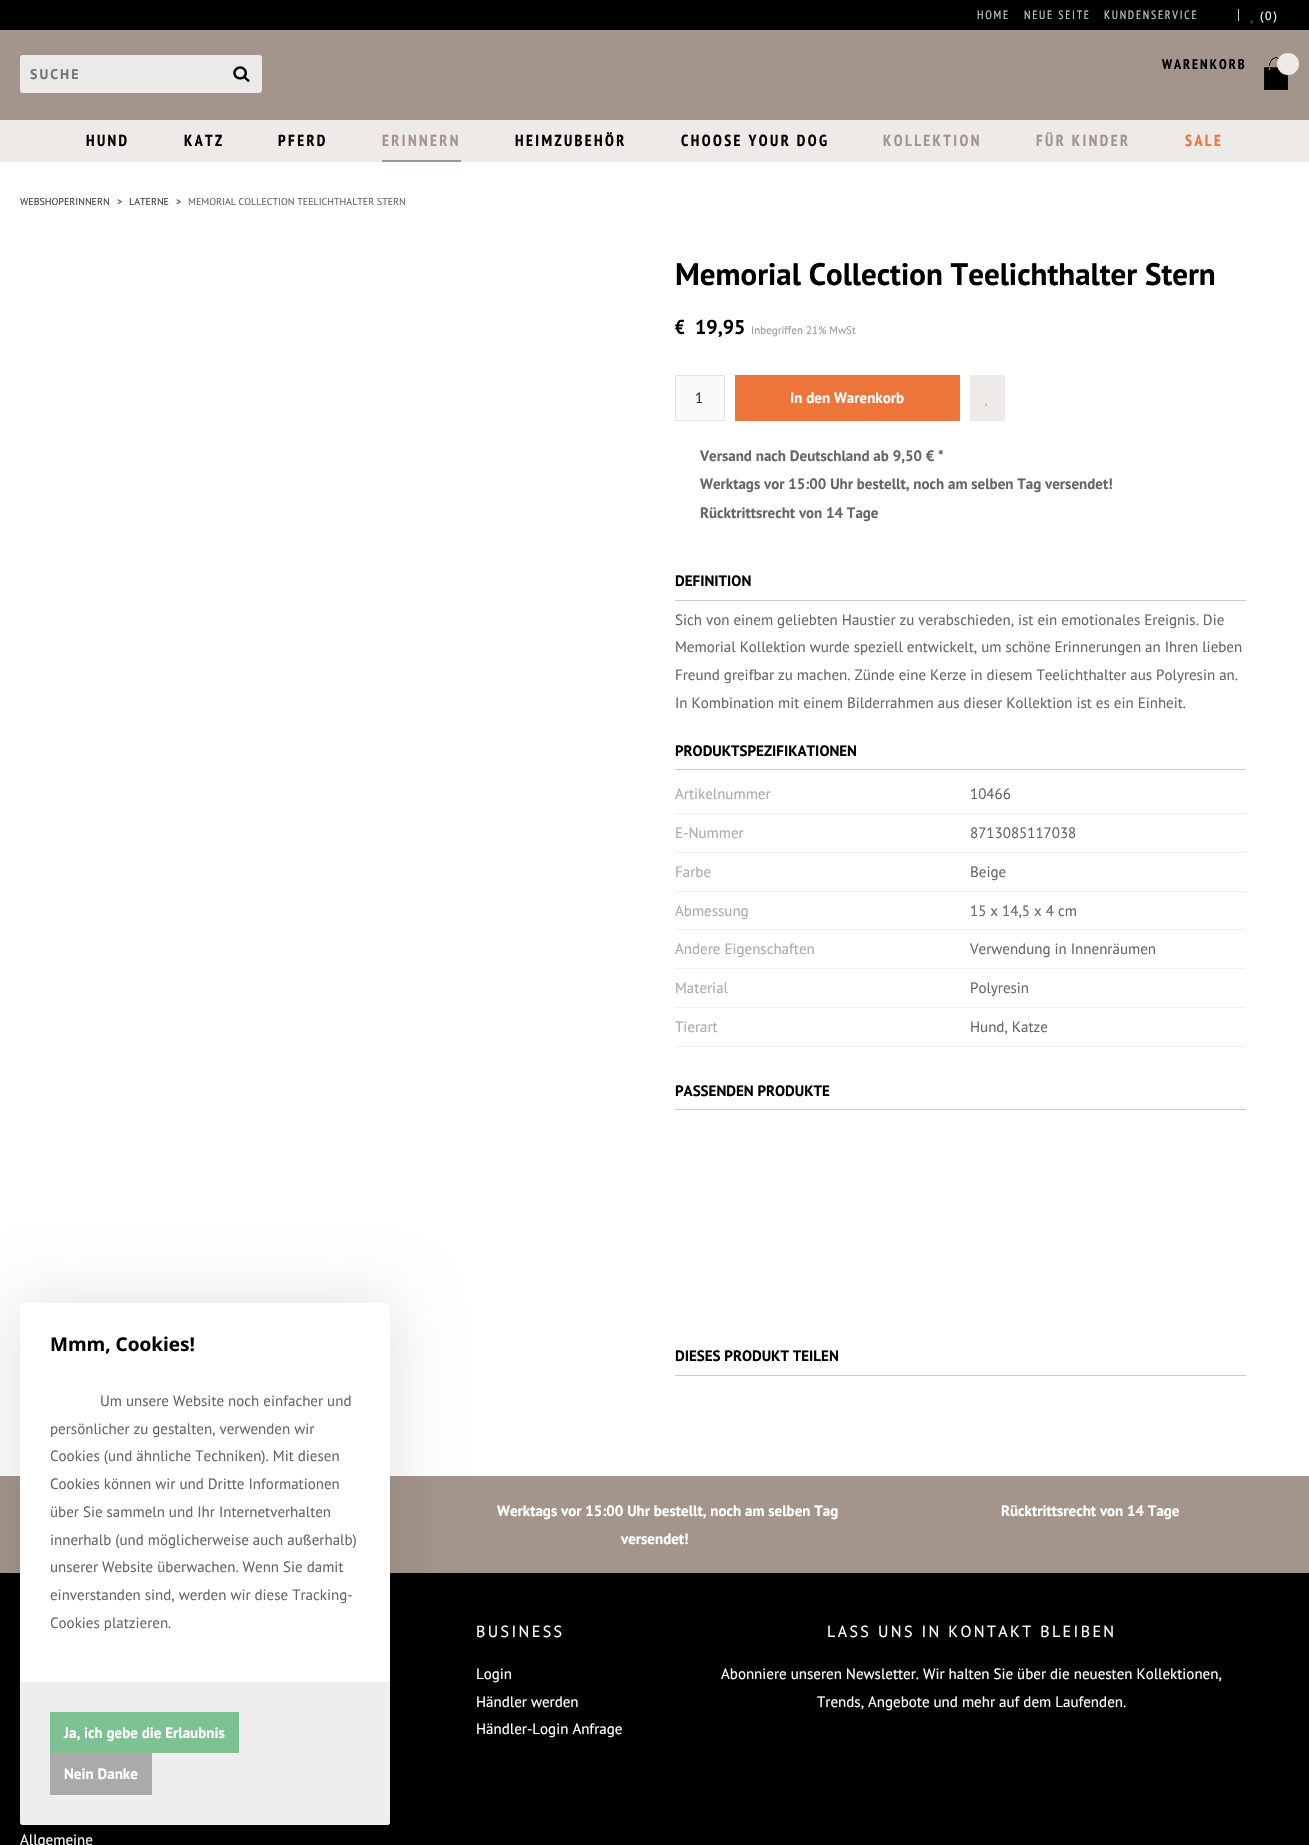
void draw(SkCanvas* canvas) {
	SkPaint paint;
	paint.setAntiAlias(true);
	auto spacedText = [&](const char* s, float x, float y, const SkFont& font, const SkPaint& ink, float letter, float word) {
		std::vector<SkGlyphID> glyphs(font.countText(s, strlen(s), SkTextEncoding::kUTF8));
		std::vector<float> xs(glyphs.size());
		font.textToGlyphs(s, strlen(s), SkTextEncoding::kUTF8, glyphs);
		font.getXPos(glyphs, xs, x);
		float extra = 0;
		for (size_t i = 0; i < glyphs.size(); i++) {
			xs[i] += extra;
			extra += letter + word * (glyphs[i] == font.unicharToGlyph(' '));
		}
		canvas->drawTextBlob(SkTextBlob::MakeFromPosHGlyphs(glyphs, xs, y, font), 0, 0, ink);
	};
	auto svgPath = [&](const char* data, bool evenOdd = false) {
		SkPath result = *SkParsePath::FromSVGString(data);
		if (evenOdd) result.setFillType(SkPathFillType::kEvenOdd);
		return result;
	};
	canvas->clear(0xffffffff);
	paint.setColor(0xff000000);
	canvas->drawRect(SkRect::MakeXYWH(0, 0, 1309, 30), paint);
	SkFont f1(fontMgr->matchFamilyStyle("PT Sans Narrow", SkFontStyle::Normal()), 12);
	f1.setSubpixel(true);
	paint.setColor(0xffcccccc);
	spacedText("HOME", 977, 19, f1, paint, 1.75, 0);
	spacedText("NEUE SEITE", 1024, 19, f1, paint, 1.75, 0);
	spacedText("KUNDENSERVICE", 1104, 19, f1, paint, 1.75, 0);
	canvas->drawRect(SkRect::MakeXYWH(1238, 9, 1, 12), paint);
	canvas->drawImageRect(SkImages::DeferredFromEncodedData(SkData::MakeFromFileName("img1.png")), SkRect::MakeXYWH(1250, 20, 3, 4), SkSamplingOptions());
	SkFont f2(fontMgr->matchFamilyStyle("PT Sans", SkFontStyle::Normal()), 12);
	f2.setSubpixel(true);
	paint.setColor(0xffffffff);
	spacedText("(0)", 1260, 20, f2, paint, 1.75, 0);
	paint.setColor(0xffa3958c);
	canvas->drawRect(SkRect::MakeXYWH(0, 30, 1309, 90), paint);
	SkFont f3(fontMgr->matchFamilyStyle("PT Sans Narrow", SkFontStyle::Bold()), 14);
	f3.setSubpixel(true);
	paint.setColor(0xff000000);
	spacedText("WARENKORB", 1162, 69, f3, paint, 2, 0);
	canvas->drawImageRect(SkImages::DeferredFromEncodedData(SkData::MakeFromFileName("img2.png")), SkRect::MakeXYWH(1264, 57, 24, 33), SkSamplingOptions());
	paint.setColor(0xffedeae8);
	canvas->drawCircle(1288, 64, 11, paint);
	paint.setColor(0xffeceae8);
	canvas->drawRoundRect(SkRect::MakeXYWH(20, 55, 242, 38), 3, 3, paint);
	SkFont f4(fontMgr->matchFamilyStyle("PT Sans", SkFontStyle::Bold()), 14);
	f4.setSubpixel(true);
	paint.setColor(0xff757575);
	spacedText("SUCHE", 30, 79, f4, paint, 2, 0);
	canvas->drawImageRect(SkImages::DeferredFromEncodedData(SkData::MakeFromFileName("img3.png")), SkRect::MakeXYWH(233, 66, 17, 16), SkSamplingOptions());
	paint.setColor(0xffedeae8);
	canvas->drawRect(SkRect::MakeXYWH(0, 120, 1309, 42), paint);
	SkFont f5(fontMgr->matchFamilyStyle("PT Sans Narrow", SkFontStyle::Bold()), 16);
	f5.setSubpixel(true);
	paint.setColor(0xff000000);
	spacedText("HUND", 86, 146, f5, paint, 2.4, 0);
	spacedText("KATZ", 184, 146, f5, paint, 2.4, 0);
	spacedText("PFERD", 278, 146, f5, paint, 2.4, 0);
	paint.setColor(0xffa3958d);
	canvas->drawRect(SkRect::MakeXYWH(382, 160, 79, 2), paint);
	spacedText("ERINNERN", 382, 146, f5, paint, 2.4, 0);
	paint.setColor(0xff000000);
	spacedText("HEIMZUBEHÖR", 515, 146, f5, paint, 2.4, 0);
	spacedText("CHOOSE YOUR DOG", 681, 146, f5, paint, 2.4, 0);
	paint.setColor(0xffa3958d);
	spacedText("KOLLEKTION", 883, 146, f5, paint, 2.4, 0);
	spacedText("FÜR KINDER", 1036, 146, f5, paint, 2.4, 0);
	paint.setColor(0xffed753a);
	spacedText("SALE", 1185, 146, f5, paint, 2.4, 0);
	SkFont f6(fontMgr->matchFamilyStyle("PT Sans", SkFontStyle::Normal()), 10);
	f6.setSubpixel(true);
	paint.setColor(0xff404040);
	canvas->drawString("WEBSHOPERINNERN", 20, 205, f6, paint);
	SkFont f7(fontMgr->matchFamilyStyle("PT Sans", SkFontStyle::Bold()), 10);
	f7.setSubpixel(true);
	paint.setColor(0xff666666);
	canvas->drawString(">", 117, 205, f7, paint);
	paint.setColor(0xff404040);
	canvas->drawString("LATERNE", 129, 205, f6, paint);
	paint.setColor(0xff666666);
	canvas->drawString(">", 176, 205, f7, paint);
	canvas->drawString("MEMORIAL COLLECTION TEELICHTHALTER STERN", 188, 205, f6, paint);
	SkFont f8(fontMgr->matchFamilyStyle("PT Sans", SkFontStyle::Bold()), 31);
	f8.setSubpixel(true);
	paint.setColor(0xff000000);
	canvas->drawString("Memorial Collection Teelichthalter Stern", 675, 285, f8, paint);
	SkFont f9(fontMgr->matchFamilyStyle("PT Sans Narrow", SkFontStyle::Bold()), 20);
	f9.setSubpixel(true);
	canvas->drawString("€", 675, 334, f9, paint);
	SkFont f10(fontMgr->matchFamilyStyle("PT Sans", SkFontStyle::Bold()), 20);
	f10.setSubpixel(true);
	canvas->drawString("19,95", 695, 334, f10, paint);
	SkFont f11(fontMgr->matchFamilyStyle("PT Sans", SkFontStyle::Normal()), 11);
	f11.setSubpixel(true);
	paint.setColor(0xff999999);
	canvas->drawString("Inbegriffen 21% MwSt", 751, 334, f11, paint);
	paint.setColor(0xfffafafa);
	canvas->drawRect(SkRect::MakeXYWH(675.5, 375.5, 49, 45), paint);
	paint.setStroke(true);
	paint.setStrokeWidth(1);
	paint.setColor(0xffe2e2e2);
	canvas->drawRect(SkRect::MakeXYWH(675.5, 375.5, 49, 45), paint);
	SkFont f12(fontMgr->matchFamilyStyle("PT Sans", SkFontStyle::Normal()), 15);
	f12.setSubpixel(true);
	paint.setStroke(false);
	paint.setColor(0xff313131);
	canvas->drawString("1", 695, 403, f12, paint);
	paint.setColor(0xffed753a);
	canvas->drawRect(SkRect::MakeXYWH(735, 375, 225, 46), paint);
	SkFont f13(fontMgr->matchFamilyStyle("PT Sans", SkFontStyle::Bold()), 15);
	f13.setSubpixel(true);
	paint.setColor(0xffffffff);
	canvas->drawString("In den Warenkorb", 790, 403, f13, paint);
	paint.setColor(0xffedeae8);
	canvas->drawRect(SkRect::MakeXYWH(970, 375, 35, 46), paint);
	canvas->drawImageRect(SkImages::DeferredFromEncodedData(SkData::MakeFromFileName("img4.png")), SkRect::MakeXYWH(985, 403, 2, 4), SkSamplingOptions());
	paint.setColor(0xff666666);
	canvas->drawString("Versand nach Deutschland ab 9,50 € *", 700, 461, f13, paint);
	canvas->drawString("Werktags vor 15:00 Uhr bestellt, noch am selben Tag versendet!", 700, 489, f13, paint);
	canvas->drawString("Rücktrittsrecht von 14 Tage", 700, 518, f13, paint);
	paint.setColor(0xffcccccc);
	canvas->drawRect(SkRect::MakeXYWH(675, 600, 571, 1), paint);
	paint.setColor(0xff000000);
	canvas->drawString("DEFINITION", 675, 586, f13, paint);
	paint.setColor(0xff666666);
	canvas->drawString("Sich von einem geliebten Haustier zu verabschieden, ist ein emotionales Ereignis. Die", 675, 625, f12, paint);
	canvas->drawString("Memorial Kollektion wurde speziell entwickelt, um schöne Erinnerungen an Ihren lieben", 675, 652, f12, paint);
	canvas->drawString("Freund greifbar zu machen. Zünde eine Kerze in diesem Teelichthalter aus Polyresin an.", 675, 680, f12, paint);
	canvas->drawString("In Kombination mit einem Bilderrahmen aus dieser Kollektion ist es ein Einheit.", 675, 708, f12, paint);
	paint.setColor(0xffcccccc);
	canvas->drawRect(SkRect::MakeXYWH(675, 769, 571, 1), paint);
	paint.setColor(0xff000000);
	canvas->drawString("PRODUKTSPEZIFIKATIONEN", 675, 756, f13, paint);
	paint.setColor(0xffeeeeee);
	canvas->drawRect(SkRect::MakeXYWH(675, 813, 571, 1), paint);
	paint.setColor(0xffaaaaaa);
	canvas->drawString("Artikelnummer", 675, 799, f12, paint);
	paint.setColor(0xff666666);
	canvas->drawString("10466", 970, 799, f12, paint);
	paint.setColor(0xffeeeeee);
	canvas->drawRect(SkRect::MakeXYWH(675, 852, 571, 1), paint);
	paint.setColor(0xffaaaaaa);
	canvas->drawString("E-Nummer", 675, 838, f12, paint);
	paint.setColor(0xff666666);
	canvas->drawString("8713085117038", 970, 838, f12, paint);
	paint.setColor(0xffeeeeee);
	canvas->drawRect(SkRect::MakeXYWH(675, 891, 571, 1), paint);
	paint.setColor(0xffaaaaaa);
	canvas->drawString("Farbe", 675, 877, f12, paint);
	paint.setColor(0xff666666);
	canvas->drawString("Beige", 970, 877, f12, paint);
	paint.setColor(0xffeeeeee);
	canvas->drawRect(SkRect::MakeXYWH(675, 929, 571, 1), paint);
	paint.setColor(0xffaaaaaa);
	canvas->drawString("Abmessung", 675, 916, f12, paint);
	paint.setColor(0xff666666);
	canvas->drawString("15 x 14,5 x 4 cm", 970, 916, f12, paint);
	paint.setColor(0xffeeeeee);
	canvas->drawRect(SkRect::MakeXYWH(675, 968, 571, 1), paint);
	paint.setColor(0xffaaaaaa);
	canvas->drawString("Andere Eigenschaften", 675, 954, f12, paint);
	paint.setColor(0xff666666);
	canvas->drawString("Verwendung in Innenräumen", 970, 954, f12, paint);
	paint.setColor(0xffeeeeee);
	canvas->drawRect(SkRect::MakeXYWH(675, 1007, 571, 1), paint);
	paint.setColor(0xffaaaaaa);
	canvas->drawString("Material", 675, 993, f12, paint);
	paint.setColor(0xff666666);
	canvas->drawString("Polyresin", 970, 993, f12, paint);
	paint.setColor(0xffeeeeee);
	canvas->drawRect(SkRect::MakeXYWH(675, 1046, 571, 1), paint);
	paint.setColor(0xffaaaaaa);
	canvas->drawString("Tierart", 675, 1032, f12, paint);
	paint.setColor(0xff666666);
	canvas->drawString("Hund, Katze", 970, 1032, f12, paint);
	paint.setColor(0xffcccccc);
	canvas->drawRect(SkRect::MakeXYWH(675, 1109, 571, 1), paint);
	paint.setColor(0xff000000);
	canvas->drawString("PASSENDEN PRODUKTE", 675, 1096, f13, paint);
	paint.setColor(0xffcccccc);
	canvas->drawRect(SkRect::MakeXYWH(675, 1375, 571, 1), paint);
	paint.setColor(0xff000000);
	canvas->drawString("DIESES PRODUKT TEILEN", 675, 1361, f13, paint);
	paint.setColor(0xffa3958c);
	canvas->drawRect(SkRect::MakeXYWH(0, 1476, 1309, 97), paint);
	paint.setColor(0xff000000);
	canvas->drawRect(SkRect::MakeXYWH(0, 1573, 1309, 272), paint);
	paint.setColor(0x1a000000);
	paint.setMaskFilter(SkMaskFilter::MakeBlur(kNormal_SkBlurStyle, 30));
	canvas->drawRoundRect(SkRect::MakeXYWH(15, 1298, 380, 532), 8, 8, paint);
	paint.setMaskFilter(nullptr);
	paint.setColor(0xffffffff);
	canvas->drawRoundRect(SkRect::MakeXYWH(20, 1303, 370, 522), 3, 3, paint);
	SkFont f14(fontMgr->matchFamilyStyle("Open Sans", SkFontStyle::Bold()), 19);
	f14.setSubpixel(true);
	paint.setColor(0xff000000);
	canvas->drawString("Mmm, Cookies!", 50, 1351, f14, paint);
	paint.setColor(0xff666666);
	canvas->drawString("Um unsere Website noch einfacher und", 100, 1406, f12, paint);
	canvas->drawString("persönlicher zu gestalten, verwenden wir", 50, 1434, f12, paint);
	canvas->drawString("Cookies (und ähnliche Techniken). Mit diesen", 50, 1461, f12, paint);
	canvas->drawString("Cookies können wir und Dritte Informationen", 50, 1489, f12, paint);
	canvas->drawString("über Sie sammeln und Ihr Internetverhalten", 50, 1517, f12, paint);
	canvas->drawString("innerhalb (und möglicherweise auch außerhalb)", 50, 1545, f12, paint);
	canvas->drawString("unserer Website überwachen. Wenn Sie damit", 50, 1572, f12, paint);
	canvas->drawString("einverstanden sind, werden wir diese Tracking-", 50, 1600, f12, paint);
	canvas->drawString("Cookies platzieren.", 50, 1628, f12, paint);
	paint.setColor(0xffeeeeee);
	canvas->drawPath(svgPath("M20 1682H390V1822C390 1823.5 388.5 1825 387 1825H23C21.5 1825 20 1823.5 20 1822Z"), paint);
	paint.setColor(0xff7ec294);
	canvas->drawRect(SkRect::MakeXYWH(50, 1712, 189, 41), paint);
	paint.setColor(0xffffffff);
	canvas->drawString("Ja, ich gebe die Erlaubnis", 64, 1738, f13, paint);
	paint.setColor(0xffaaaaaa);
	canvas->drawRect(SkRect::MakeXYWH(50, 1753, 102, 42), paint);
	paint.setColor(0xffffffff);
	canvas->drawString("Nein Danke", 64, 1779, f13, paint);
	canvas->drawString("Werktags vor 15:00 Uhr bestellt, noch am selben Tag", 497, 1516, f13, paint);
	canvas->drawString("versendet!", 621, 1544, f13, paint);
	canvas->drawString("Rücktrittsrecht von 14 Tage", 1001, 1516, f13, paint);
	SkFont f15(fontMgr->matchFamilyStyle("PT Sans", SkFontStyle::Normal()), 16);
	f15.setSubpixel(true);
	spacedText("BUSINESS", 476, 1637, f15, paint, 2.4, 0);
	canvas->drawString("Login", 476, 1679, f12, paint);
	canvas->drawString("Händler werden", 476, 1707, f12, paint);
	canvas->drawString("Händler-Login Anfrage", 476, 1734, f12, paint);
	spacedText("LASS UNS IN KONTAKT BLEIBEN", 827, 1637, f15, paint, 2.4, 0);
	canvas->drawString("Abonniere unseren Newsletter. Wir halten Sie über die neuesten Kollektionen,", 721, 1679, f12, paint);
	canvas->drawString("Trends, Angebote und mehr auf dem Laufenden.", 817, 1707, f12, paint);
	canvas->drawString("Allgemeine", 20, 1845, f12, paint);
}
